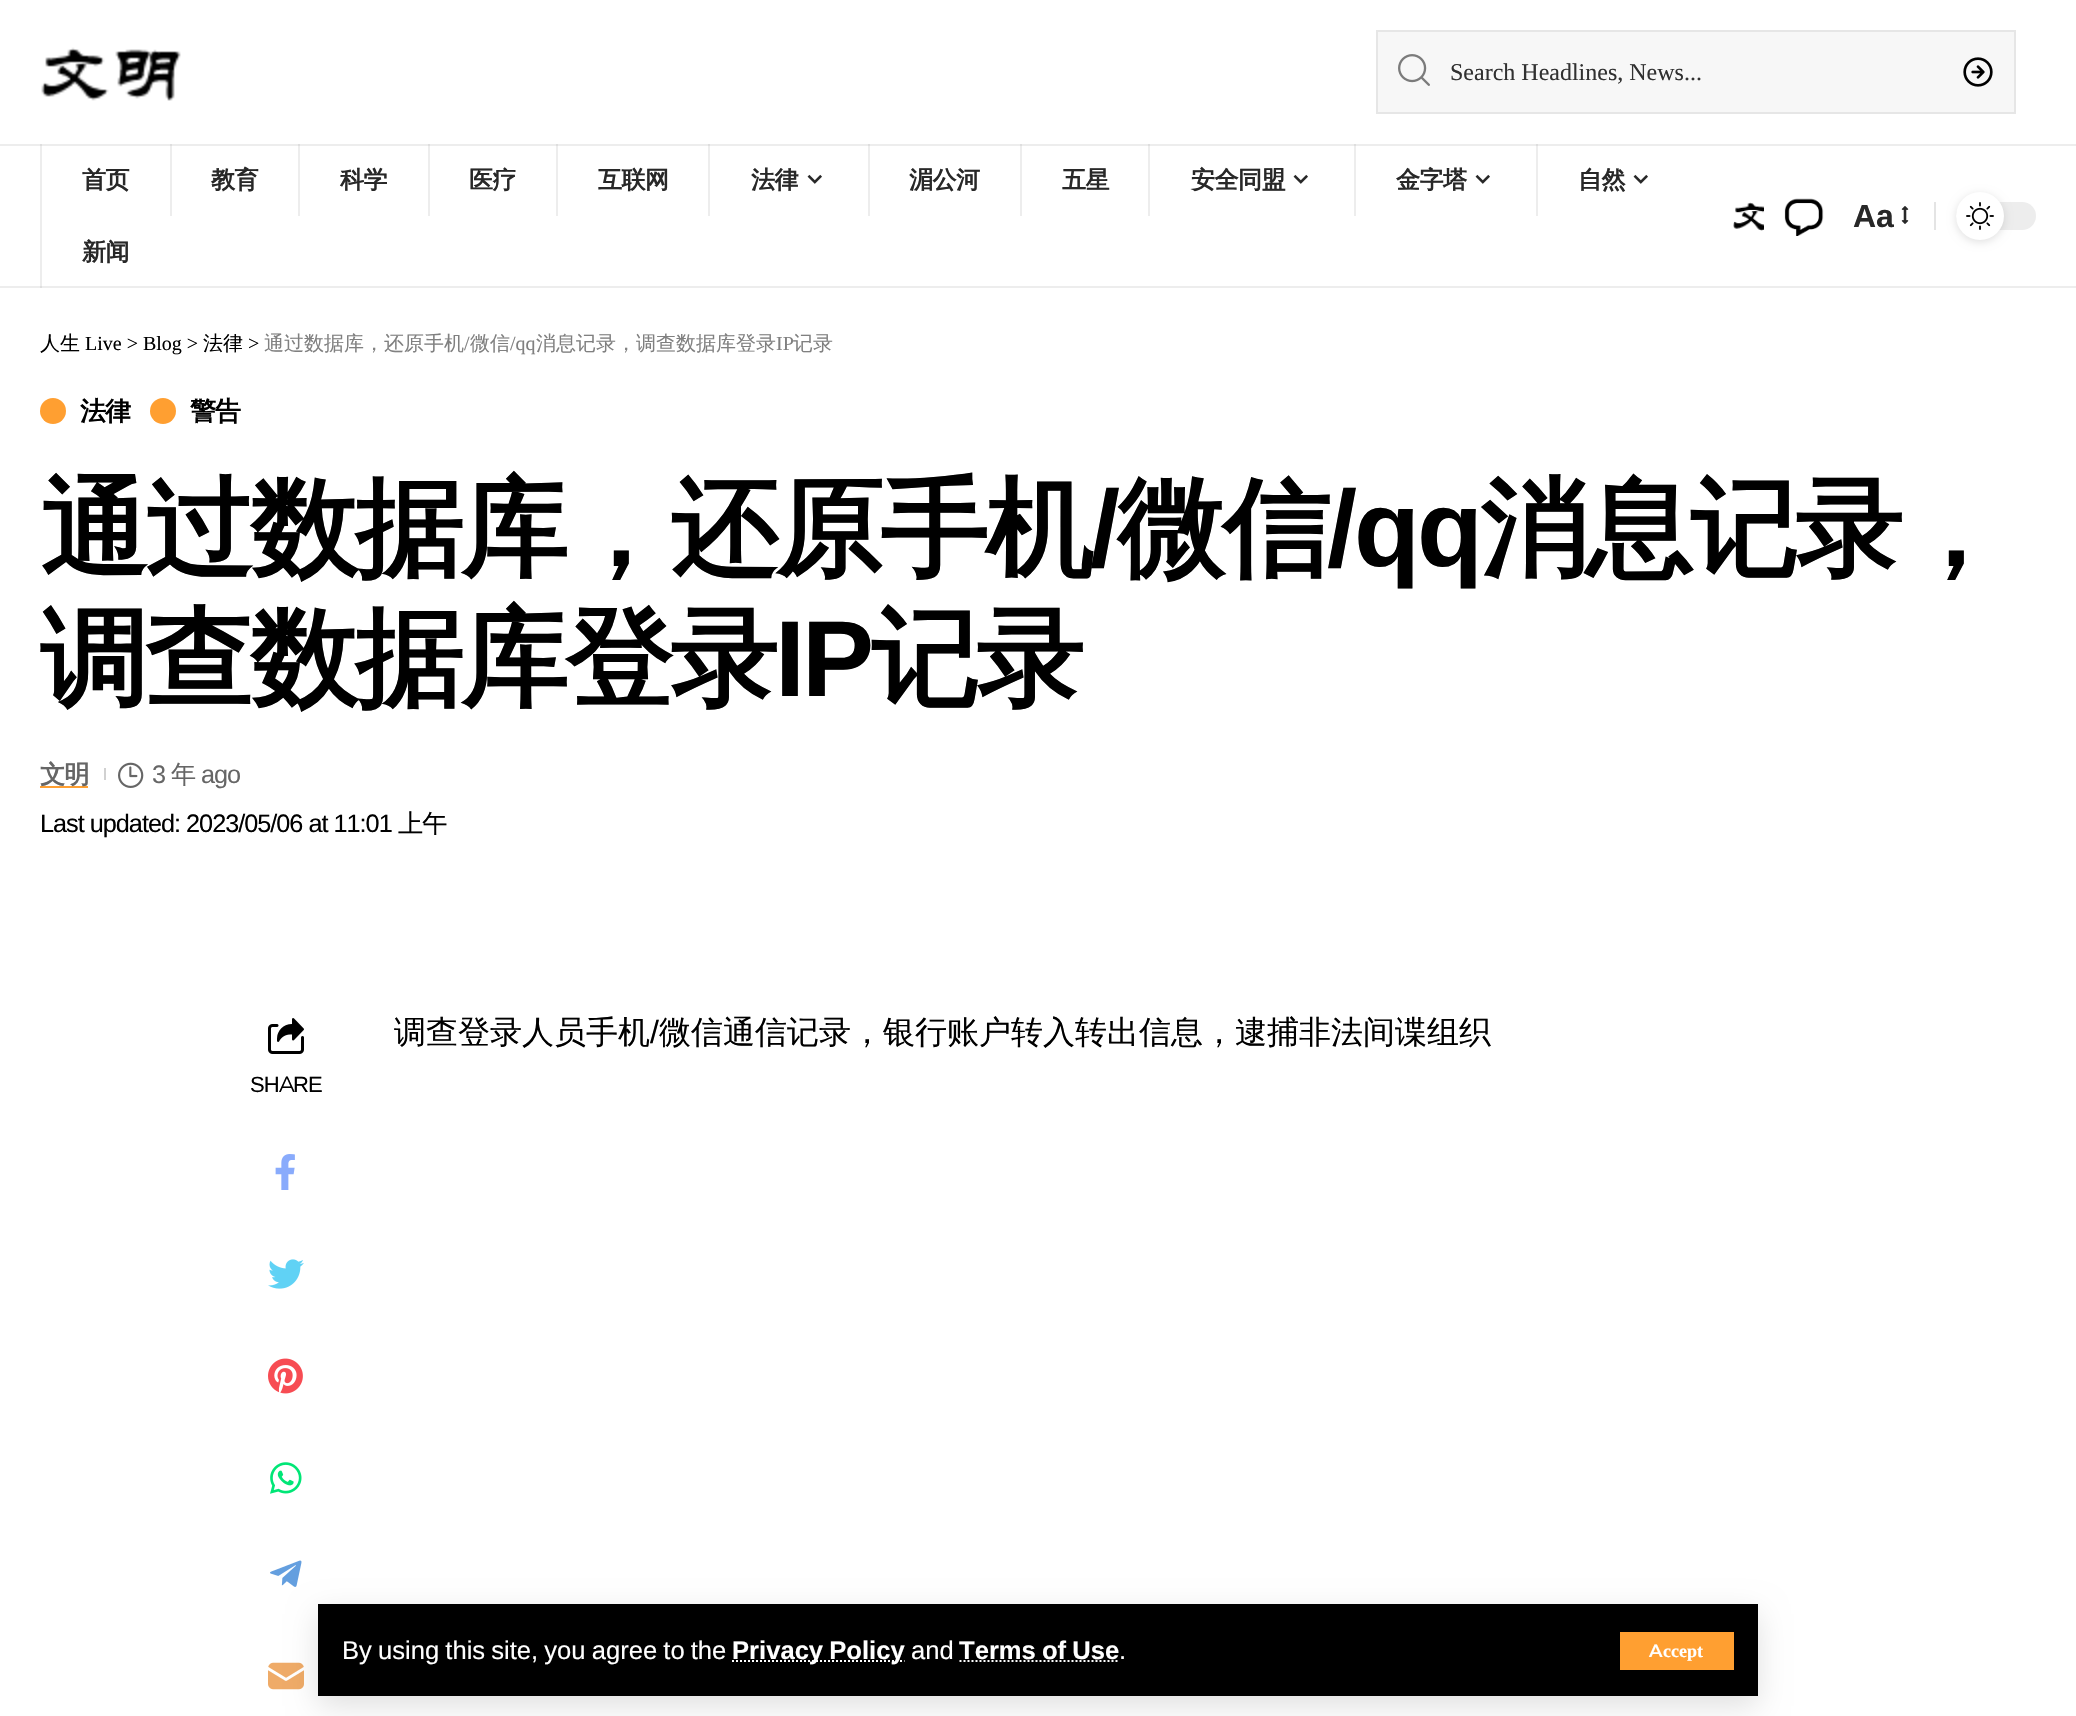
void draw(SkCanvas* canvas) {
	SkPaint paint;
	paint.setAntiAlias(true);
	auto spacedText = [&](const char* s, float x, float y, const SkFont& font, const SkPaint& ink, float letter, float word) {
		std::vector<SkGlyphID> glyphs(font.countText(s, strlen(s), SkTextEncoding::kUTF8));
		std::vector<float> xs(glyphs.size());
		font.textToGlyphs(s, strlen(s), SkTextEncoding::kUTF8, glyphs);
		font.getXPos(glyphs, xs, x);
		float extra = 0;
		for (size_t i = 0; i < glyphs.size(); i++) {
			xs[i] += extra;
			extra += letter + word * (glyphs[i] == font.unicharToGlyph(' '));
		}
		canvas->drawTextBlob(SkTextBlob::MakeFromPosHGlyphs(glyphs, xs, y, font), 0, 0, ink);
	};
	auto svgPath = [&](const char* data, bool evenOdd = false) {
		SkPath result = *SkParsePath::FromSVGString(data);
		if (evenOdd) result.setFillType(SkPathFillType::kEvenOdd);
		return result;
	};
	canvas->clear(0xffffffff);
	paint.setColor(0xffededed);
	canvas->drawRect(SkRect::MakeXYWH(0, 286, 2076, 2), paint);
	canvas->drawRect(SkRect::MakeXYWH(1536, 144, 2, 72), paint);
	canvas->drawRect(SkRect::MakeXYWH(1354, 144, 2, 72), paint);
	canvas->drawRect(SkRect::MakeXYWH(1148, 144, 2, 72), paint);
	canvas->drawRect(SkRect::MakeXYWH(1020, 144, 2, 72), paint);
	canvas->drawRect(SkRect::MakeXYWH(868, 144, 2, 72), paint);
	canvas->drawRect(SkRect::MakeXYWH(708, 144, 2, 72), paint);
	canvas->drawRect(SkRect::MakeXYWH(556, 144, 2, 72), paint);
	canvas->drawRect(SkRect::MakeXYWH(428, 144, 2, 72), paint);
	canvas->drawRect(SkRect::MakeXYWH(298, 144, 2, 72), paint);
	canvas->drawRect(SkRect::MakeXYWH(170, 144, 2, 72), paint);
	canvas->drawRect(SkRect::MakeXYWH(40, 144, 2, 144), paint);
	canvas->drawImageRect(SkImages::DeferredFromEncodedData(SkData::MakeFromFileName("img1.png")), SkRect::MakeXYWH(41, 47, 140, 54), SkSamplingOptions());
	paint.setColor(0xfff7f7f7);
	canvas->drawRect(SkRect::MakeXYWH(1377, 31, 638, 82), paint);
	paint.setStroke(true);
	paint.setStrokeWidth(2);
	paint.setColor(0xffe6e6e6);
	canvas->drawRect(SkRect::MakeXYWH(1377, 31, 638, 82), paint);
	canvas->drawImageRect(SkImages::DeferredFromEncodedData(SkData::MakeFromFileName("img2.png")), SkRect::MakeXYWH(1398, 54, 32, 32), SkSamplingOptions());
	SkFont f1(fontMgr->matchFamilyStyle("Liberation Serif", SkFontStyle::Normal()), 24);
	f1.setSubpixel(true);
	paint.setStroke(false);
	paint.setColor(0xff313131);
	canvas->drawString("Search Headlines, News...", 1450, 80, f1, paint);
	canvas->drawImageRect(SkImages::DeferredFromEncodedData(SkData::MakeFromFileName("img3.png")), SkRect::MakeXYWH(1963, 57, 30, 30), SkSamplingOptions());
	paint.setColor(0xffededed);
	canvas->drawRect(SkRect::MakeXYWH(0, 144, 2076, 2), paint);
	paint.setColor(0xffdedede);
	canvas->drawRect(SkRect::MakeXYWH(1536, 144, 2, 2), paint);
	canvas->drawRect(SkRect::MakeXYWH(1354, 144, 2, 2), paint);
	canvas->drawRect(SkRect::MakeXYWH(1148, 144, 2, 2), paint);
	canvas->drawRect(SkRect::MakeXYWH(1020, 144, 2, 2), paint);
	canvas->drawRect(SkRect::MakeXYWH(868, 144, 2, 2), paint);
	canvas->drawRect(SkRect::MakeXYWH(708, 144, 2, 2), paint);
	canvas->drawRect(SkRect::MakeXYWH(556, 144, 2, 2), paint);
	canvas->drawRect(SkRect::MakeXYWH(428, 144, 2, 2), paint);
	canvas->drawRect(SkRect::MakeXYWH(298, 144, 2, 2), paint);
	canvas->drawRect(SkRect::MakeXYWH(170, 144, 2, 2), paint);
	canvas->drawRect(SkRect::MakeXYWH(40, 144, 2, 2), paint);
	SkFont f2(fontMgr->matchFamilyStyle("WenQuanYi Zen Hei", SkFontStyle::Bold()), 24);
	f2.setSubpixel(true);
	paint.setColor(0xff282828);
	spacedText("首页", 82, 188, f2, paint, -0.5, 0);
	spacedText("教育", 211, 188, f2, paint, -0.5, 0);
	spacedText("科学", 340, 188, f2, paint, -0.5, 0);
	spacedText("医疗", 469, 188, f2, paint, -0.5, 0);
	spacedText("互联网", 598, 188, f2, paint, -0.5, 0);
	spacedText("法律", 751, 188, f2, paint, -0.5, 0);
	canvas->drawImageRect(SkImages::DeferredFromEncodedData(SkData::MakeFromFileName("img4.png")), SkRect::MakeXYWH(807, 174, 15, 10), SkSamplingOptions());
	spacedText("湄公河", 909, 188, f2, paint, -0.5, 0);
	spacedText("五星", 1062, 188, f2, paint, -0.5, 0);
	spacedText("安全同盟", 1191, 188, f2, paint, -0.5, 0);
	canvas->drawImageRect(SkImages::DeferredFromEncodedData(SkData::MakeFromFileName("img4.png")), SkRect::MakeXYWH(1293, 174, 15, 10), SkSamplingOptions());
	spacedText("金字塔", 1396, 188, f2, paint, -0.5, 0);
	canvas->drawImageRect(SkImages::DeferredFromEncodedData(SkData::MakeFromFileName("img4.png")), SkRect::MakeXYWH(1475, 174, 15, 10), SkSamplingOptions());
	spacedText("自然", 1578, 188, f2, paint, -0.5, 0);
	canvas->drawImageRect(SkImages::DeferredFromEncodedData(SkData::MakeFromFileName("img4.png")), SkRect::MakeXYWH(1633, 174, 15, 10), SkSamplingOptions());
	paint.setColor(0xffdedede);
	canvas->drawRect(SkRect::MakeXYWH(40, 286, 2, 2), paint);
	paint.setColor(0xff282828);
	spacedText("新闻", 82, 260, f2, paint, -0.5, 0);
	canvas->drawImageRect(SkImages::DeferredFromEncodedData(SkData::MakeFromFileName("img5.png")), SkRect::MakeXYWH(1733, 202, 31, 29), SkSamplingOptions());
	canvas->drawImageRect(SkImages::DeferredFromEncodedData(SkData::MakeFromFileName("img6.png")), SkRect::MakeXYWH(1784, 198, 40, 38), SkSamplingOptions());
	SkFont f3(fontMgr->matchFamilyStyle("Liberation Sans", SkFontStyle::Bold()), 32);
	f3.setSubpixel(true);
	canvas->drawString("Aa", 1853, 227, f3, paint);
	canvas->drawImageRect(SkImages::DeferredFromEncodedData(SkData::MakeFromFileName("img7.png")), SkRect::MakeXYWH(1901, 206, 8, 18), SkSamplingOptions());
	paint.setColor(0xffe4e4e4);
	canvas->drawRect(SkRect::MakeXYWH(1934, 202, 2, 28), paint);
	paint.setColor(0xffededed);
	canvas->drawRoundRect(SkRect::MakeXYWH(1956, 202, 80, 28), 14, 14, paint);
	paint.setColor(0x1f000000);
	paint.setMaskFilter(SkMaskFilter::MakeBlur(kNormal_SkBlurStyle, 4));
	canvas->drawRoundRect(SkRect::MakeXYWH(1956, 194, 48, 48), 24, 24, paint);
	paint.setMaskFilter(nullptr);
	paint.setColor(0xffffffff);
	canvas->drawCircle(1980, 216, 24, paint);
	canvas->drawImageRect(SkImages::DeferredFromEncodedData(SkData::MakeFromFileName("img8.png")), SkRect::MakeXYWH(1966, 202, 28, 28), SkSamplingOptions());
	canvas->drawImageRect(SkImages::DeferredFromEncodedData(SkData::MakeFromFileName("img15.png")), SkRect::MakeXYWH(270, 1560, 32, 27), SkSamplingOptions());
	canvas->drawImageRect(SkImages::DeferredFromEncodedData(SkData::MakeFromFileName("img16.png")), SkRect::MakeXYWH(268, 1662, 36, 28), SkSamplingOptions());
	paint.setColor(0x1f000000);
	paint.setMaskFilter(SkMaskFilter::MakeBlur(kNormal_SkBlurStyle, 15));
	canvas->drawRect(SkRect::MakeXYWH(318, 1614, 1440, 92), paint);
	paint.setMaskFilter(nullptr);
	paint.setColor(0xff000000);
	canvas->drawRect(SkRect::MakeXYWH(318, 1604, 1440, 92), paint);
	SkFont f4(fontMgr->matchFamilyStyle("Liberation Sans", SkFontStyle::Normal()), 25.6);
	f4.setSubpixel(true);
	paint.setColor(0xffffffff);
	spacedText("By using this site, you agree to the", 342, 1659, f4, paint, 0, -1);
	paint.setStroke(true);
	paint.setPathEffect(SkDashPathEffect::Make({{2, 2}}, 0));
	canvas->drawPath(svgPath("M732 1661H904.5"), paint);
	paint.setPathEffect(nullptr);
	SkFont f5(fontMgr->matchFamilyStyle("Liberation Sans", SkFontStyle::Bold()), 25.6);
	f5.setSubpixel(true);
	paint.setStroke(false);
	spacedText("Privacy Policy", 732, 1659, f5, paint, 0, -1);
	canvas->drawString("and", 911, 1659, f4, paint);
	spacedText("Terms of Use", 959, 1659, f5, paint, 0, -1);
	paint.setStroke(true);
	paint.setPathEffect(SkDashPathEffect::Make({{2, 2}}, 0));
	canvas->drawPath(svgPath("M959.5 1661H1119.5"), paint);
	paint.setPathEffect(nullptr);
	paint.setStroke(false);
	canvas->drawString(".", 1119, 1659, f4, paint);
	paint.setColor(0xffff9f31);
	canvas->drawRect(SkRect::MakeXYWH(1620, 1632, 114, 38), paint);
	SkFont f6(fontMgr->matchFamilyStyle("Montserrat", SkFontStyle(600, SkFontStyle::kNormal_Width, SkFontStyle::kUpright_Slant)), 18);
	f6.setSubpixel(true);
	paint.setColor(0xffffffff);
	canvas->drawString("A", 1649, 1657, f6, paint);
	SkFont f7(fontMgr->matchFamilyStyle("Liberation Serif", SkFontStyle::Bold()), 18);
	f7.setSubpixel(true);
	canvas->drawString("ccept", 1663, 1657, f7, paint);
	SkFont f8(fontMgr->matchFamilyStyle("WenQuanYi Zen Hei", SkFontStyle(500, SkFontStyle::kNormal_Width, SkFontStyle::kUpright_Slant)), 20);
	f8.setSubpixel(true);
	paint.setColor(0xff000000);
	canvas->drawString("人生", 40, 350, f8, paint);
	SkFont f9(fontMgr->matchFamilyStyle("Liberation Serif", SkFontStyle::Normal()), 20);
	f9.setSubpixel(true);
	canvas->drawString("Live > Blog >", 85, 350, f9, paint);
	canvas->drawString("法律", 203, 350, f8, paint);
	canvas->drawString(">", 248, 350, f9, paint);
	paint.setColor(0xff808080);
	canvas->drawString("通过数据库，还原手机", 264, 350, f8, paint);
	canvas->drawString("/", 464, 350, f9, paint);
	canvas->drawString("微信", 470, 350, f8, paint);
	canvas->drawString("/qq", 510, 350, f9, paint);
	canvas->drawString("消息记录，调查数据库登录", 536, 350, f8, paint);
	canvas->drawString("IP", 776, 350, f9, paint);
	canvas->drawString("记录", 793, 350, f8, paint);
	paint.setColor(0xffff9f31);
	canvas->drawCircle(53, 411, 13, paint);
	SkFont f10(fontMgr->matchFamilyStyle("WenQuanYi Zen Hei", SkFontStyle::Bold()), 26);
	f10.setSubpixel(true);
	paint.setColor(0xff000000);
	spacedText("法律", 80, 420, f10, paint, -1, 0);
	paint.setColor(0xffff9f31);
	canvas->drawCircle(163, 411, 13, paint);
	paint.setColor(0xff000000);
	spacedText("警告", 190, 420, f10, paint, -1, 0);
	SkFont f11(fontMgr->matchFamilyStyle("WenQuanYi Zen Hei", SkFontStyle::Bold()), 108);
	f11.setSubpixel(true);
	spacedText("通过数据库，还原手机", 40, 566, f11, paint, -3, 0);
	SkFont f12(fontMgr->matchFamilyStyle("Liberation Sans", SkFontStyle::Bold()), 108);
	f12.setSubpixel(true);
	spacedText("/", 1090, 566, f12, paint, -3, 0);
	spacedText("微信", 1117, 566, f11, paint, -3, 0);
	spacedText("/qq", 1327, 566, f12, paint, -3, 0);
	spacedText("消息记录，", 1480, 566, f11, paint, -3, 0);
	spacedText("调查数据库登录", 40, 696, f11, paint, -3, 0);
	spacedText("IP", 775, 696, f12, paint, -3, 0);
	spacedText("记录", 871, 696, f11, paint, -3, 0);
	paint.setColor(0xffff9f31);
	canvas->drawRect(SkRect::MakeXYWH(40, 786, 48, 2), paint);
	SkFont f13(fontMgr->matchFamilyStyle("WenQuanYi Zen Hei", SkFontStyle::Bold()), 25.25);
	f13.setSubpixel(true);
	paint.setColor(0xff666666);
	spacedText("文明", 40, 783, f13, paint, -1, 0);
	paint.setColor(0xffd1d1d1);
	canvas->drawRect(SkRect::MakeXYWH(104, 768, 2, 12), paint);
	canvas->drawImageRect(SkImages::DeferredFromEncodedData(SkData::MakeFromFileName("img9.png")), SkRect::MakeXYWH(118, 762, 26, 26), SkSamplingOptions());
	SkFont f14(fontMgr->matchFamilyStyle("Liberation Sans", SkFontStyle::Normal()), 25.25);
	f14.setSubpixel(true);
	paint.setColor(0xff666666);
	spacedText("3", 152, 783, f14, paint, -1, 0);
	SkFont f15(fontMgr->matchFamilyStyle("WenQuanYi Zen Hei", SkFontStyle(500, SkFontStyle::kNormal_Width, SkFontStyle::kUpright_Slant)), 25.25);
	f15.setSubpixel(true);
	spacedText("年", 171, 783, f15, paint, -1, 0);
	spacedText("ago", 201, 783, f14, paint, -1, 0);
	paint.setColor(0xff000000);
	spacedText("Last updated: 2023/05/06 at 11:01", 40, 832, f14, paint, -1, 0);
	spacedText("上午", 398, 832, f15, paint, -1, 0);
	SkFont f16(fontMgr->matchFamilyStyle("WenQuanYi Zen Hei", SkFontStyle(500, SkFontStyle::kNormal_Width, SkFontStyle::kUpright_Slant)), 32);
	f16.setSubpixel(true);
	canvas->drawString("调查登录人员手机", 394, 1043, f16, paint);
	SkFont f17(fontMgr->matchFamilyStyle("Liberation Sans", SkFontStyle::Normal()), 32);
	f17.setSubpixel(true);
	canvas->drawString("/", 650, 1043, f17, paint);
	canvas->drawString("微信通信记录，银行账户转入转出信息，逮捕非法间谍组织", 659, 1043, f16, paint);
	canvas->drawImageRect(SkImages::DeferredFromEncodedData(SkData::MakeFromFileName("img10.png")), SkRect::MakeXYWH(268, 1018, 36, 36), SkSamplingOptions());
	SkFont f18(fontMgr->matchFamilyStyle("Liberation Sans", SkFontStyle::Normal()), 22);
	f18.setSubpixel(true);
	spacedText("SH", 250, 1092, f18, paint, -1, 0);
	SkFont f19(fontMgr->matchFamilyStyle("Montserrat", SkFontStyle::Normal()), 22);
	f19.setSubpixel(true);
	spacedText("A", 279, 1092, f19, paint, -1, 0);
	spacedText("RE", 293, 1092, f18, paint, -1, 0);
	canvas->drawImageRect(SkImages::DeferredFromEncodedData(SkData::MakeFromFileName("img11.png")), SkRect::MakeXYWH(275, 1154, 20, 36), SkSamplingOptions());
	canvas->drawImageRect(SkImages::DeferredFromEncodedData(SkData::MakeFromFileName("img12.png")), SkRect::MakeXYWH(268, 1259, 36, 30), SkSamplingOptions());
	canvas->drawImageRect(SkImages::DeferredFromEncodedData(SkData::MakeFromFileName("img13.png")), SkRect::MakeXYWH(268, 1358, 35, 36), SkSamplingOptions());
	canvas->drawImageRect(SkImages::DeferredFromEncodedData(SkData::MakeFromFileName("img14.png")), SkRect::MakeXYWH(270, 1462, 32, 32), SkSamplingOptions());
}
